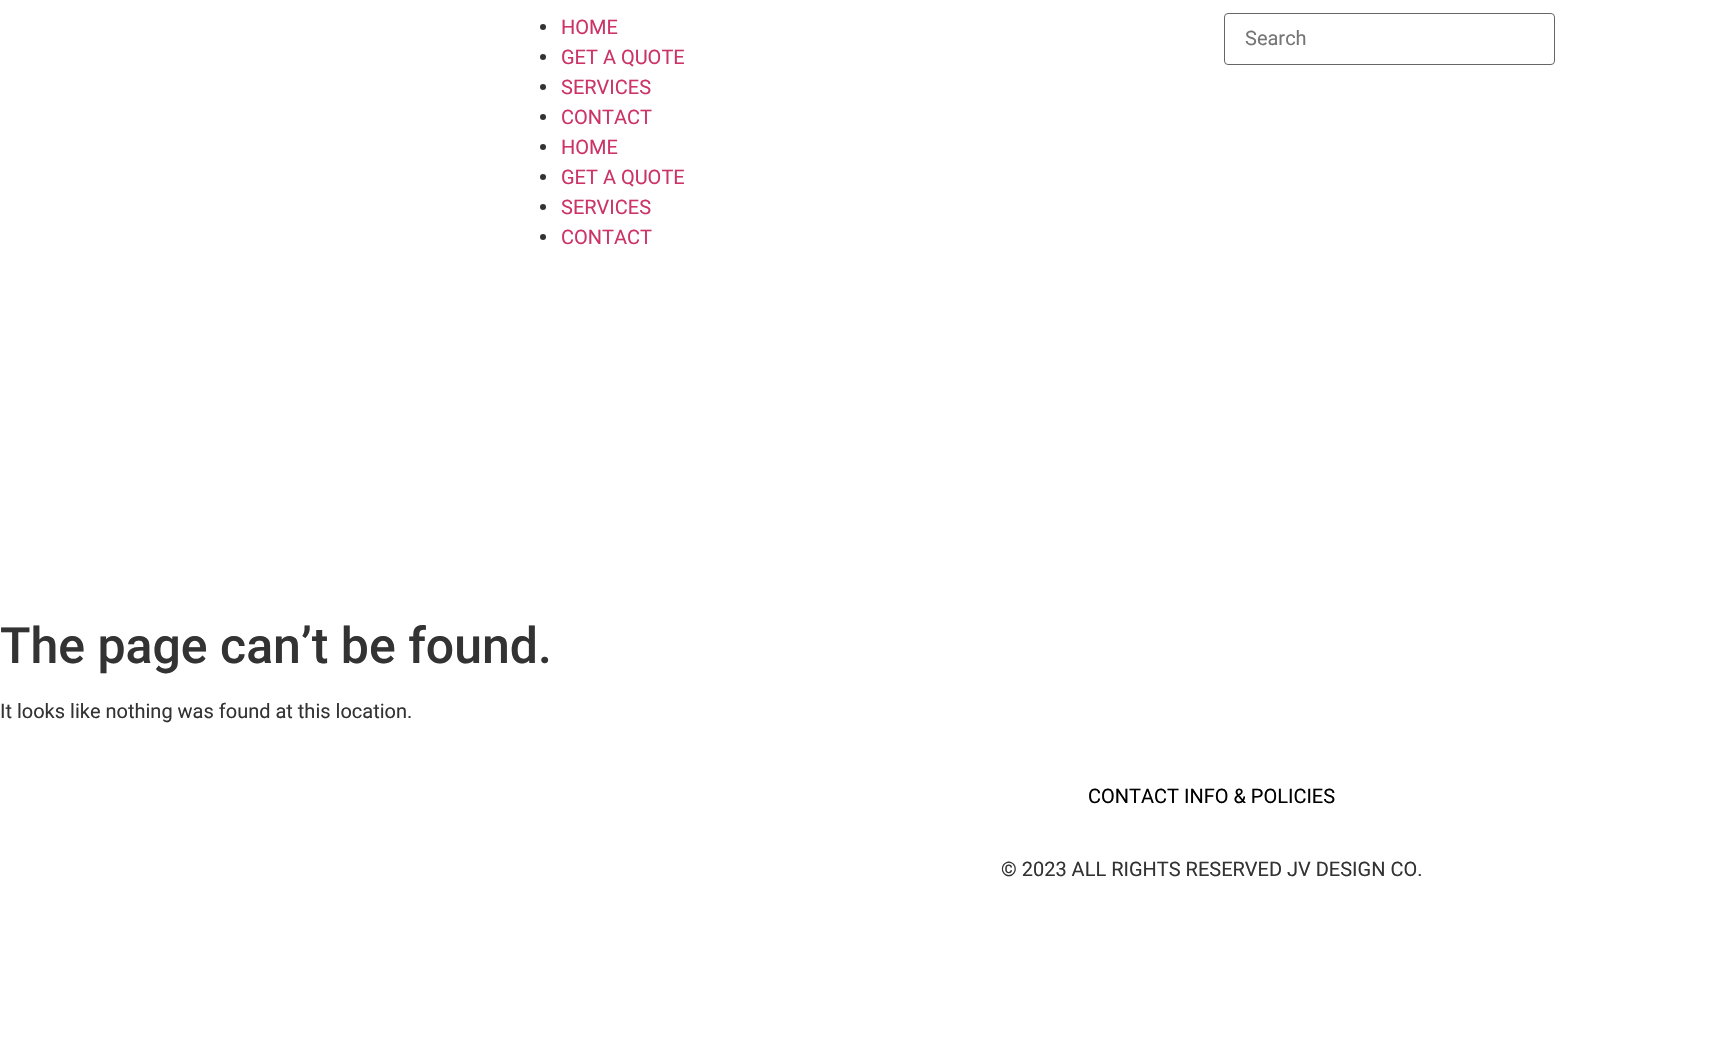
void draw(SkCanvas* canvas) {
	SkPaint paint;
	paint.setAntiAlias(true);
	canvas->clear(0xffffffff);
	paint.setColor(0xff333333);
	canvas->drawCircle(543, 27, 3, paint);
	SkFont f1(fontMgr->matchFamilyStyle("Roboto", SkFontStyle::Normal()), 20);
	f1.setSubpixel(true);
	paint.setColor(0xffcc3366);
	canvas->drawString("HOME", 561, 34, f1, paint);
	paint.setColor(0xff333333);
	canvas->drawCircle(543, 57, 3, paint);
	paint.setColor(0xffcc3366);
	canvas->drawString("GET A QUOTE", 561, 64, f1, paint);
	paint.setColor(0xff333333);
	canvas->drawCircle(543, 87, 3, paint);
	paint.setColor(0xffcc3366);
	canvas->drawString("SERVICES", 561, 94, f1, paint);
	paint.setColor(0xff333333);
	canvas->drawCircle(543, 117, 3, paint);
	paint.setColor(0xffcc3366);
	canvas->drawString("CONTACT", 561, 124, f1, paint);
	paint.setColor(0xff333333);
	canvas->drawCircle(543, 147, 3, paint);
	paint.setColor(0xffcc3366);
	canvas->drawString("HOME", 561, 154, f1, paint);
	paint.setColor(0xff333333);
	canvas->drawCircle(543, 177, 3, paint);
	paint.setColor(0xffcc3366);
	canvas->drawString("GET A QUOTE", 561, 184, f1, paint);
	paint.setColor(0xff333333);
	canvas->drawCircle(543, 207, 3, paint);
	paint.setColor(0xffcc3366);
	canvas->drawString("SERVICES", 561, 214, f1, paint);
	paint.setColor(0xff333333);
	canvas->drawCircle(543, 237, 3, paint);
	paint.setColor(0xffcc3366);
	canvas->drawString("CONTACT", 561, 244, f1, paint);
	paint.setStroke(true);
	paint.setStrokeWidth(1);
	paint.setColor(0xff666666);
	canvas->drawRoundRect(SkRect::MakeXYWH(1224.5, 13.5, 330, 51), 3.5, 3.5, paint);
	paint.setStroke(false);
	paint.setColor(0xff757575);
	canvas->drawString("Search", 1245, 45, f1, paint);
	SkFont f2(fontMgr->matchFamilyStyle("Roboto", SkFontStyle(500, SkFontStyle::kNormal_Width, SkFontStyle::kUpright_Slant)), 50);
	f2.setSubpixel(true);
	paint.setColor(0xff333333);
	canvas->drawString("The page can’t be found.", 0, 663, f2, paint);
	canvas->drawString("It looks like nothing was found at this location.", 0, 718, f1, paint);
	paint.setColor(0xff000000);
	canvas->drawString("CONTACT INFO & POLICIES", 1088, 803, f1, paint);
	paint.setColor(0xff333333);
	canvas->drawString("© 2023 ALL RIGHTS RESERVED JV DESIGN CO.", 1001, 876, f1, paint);
}
